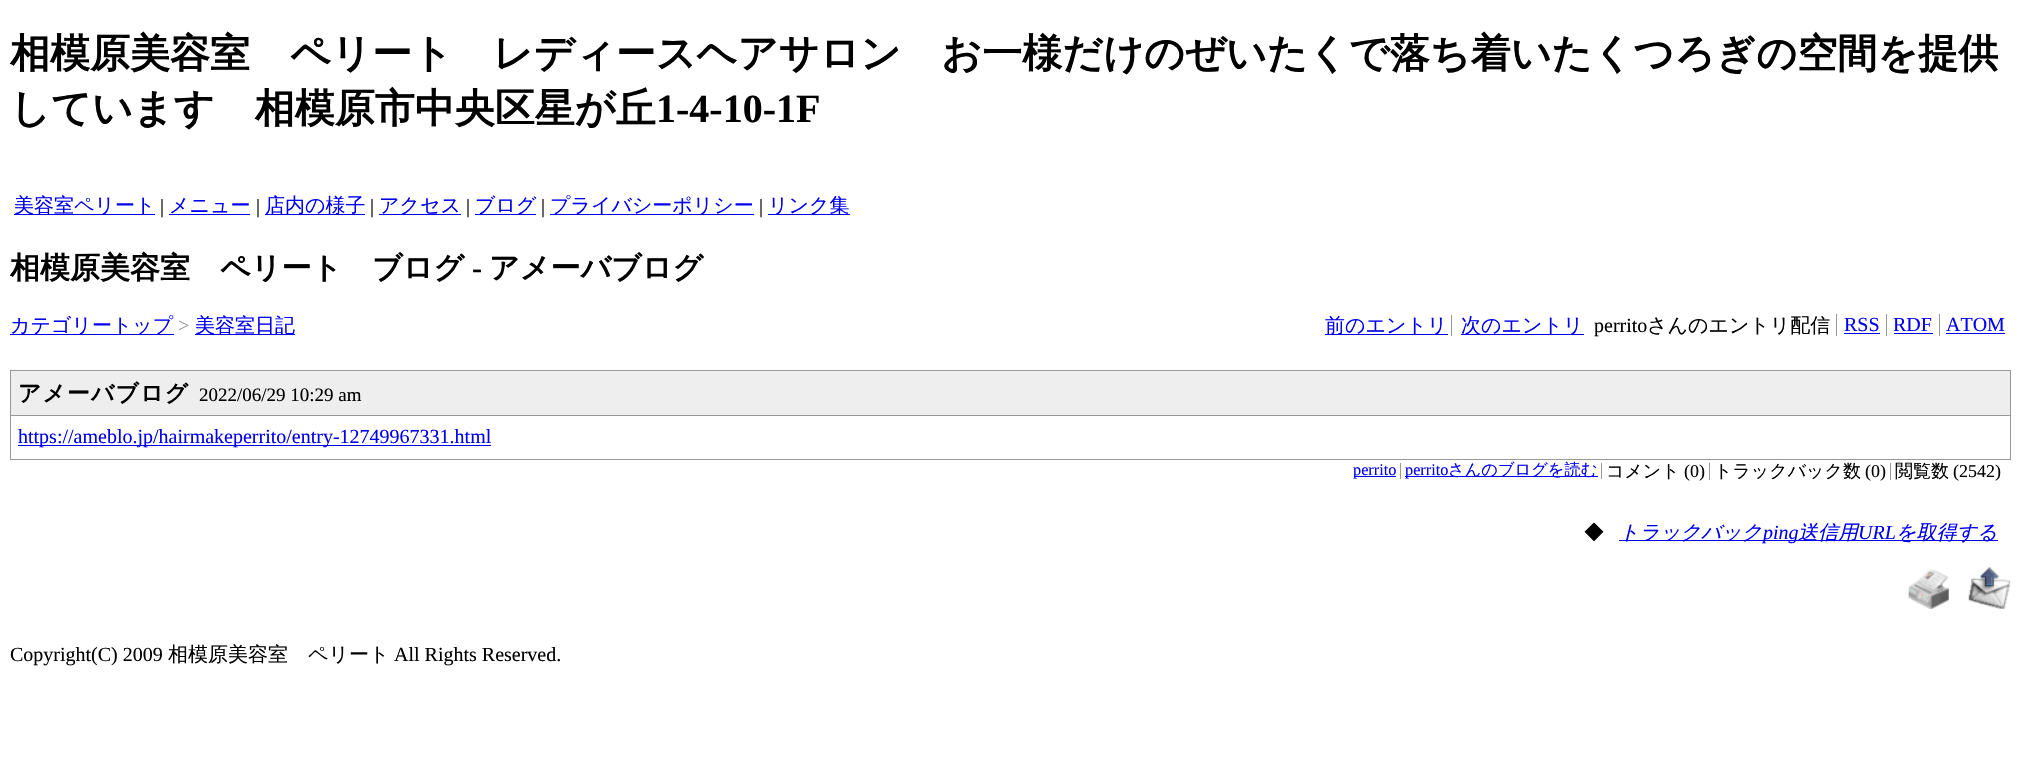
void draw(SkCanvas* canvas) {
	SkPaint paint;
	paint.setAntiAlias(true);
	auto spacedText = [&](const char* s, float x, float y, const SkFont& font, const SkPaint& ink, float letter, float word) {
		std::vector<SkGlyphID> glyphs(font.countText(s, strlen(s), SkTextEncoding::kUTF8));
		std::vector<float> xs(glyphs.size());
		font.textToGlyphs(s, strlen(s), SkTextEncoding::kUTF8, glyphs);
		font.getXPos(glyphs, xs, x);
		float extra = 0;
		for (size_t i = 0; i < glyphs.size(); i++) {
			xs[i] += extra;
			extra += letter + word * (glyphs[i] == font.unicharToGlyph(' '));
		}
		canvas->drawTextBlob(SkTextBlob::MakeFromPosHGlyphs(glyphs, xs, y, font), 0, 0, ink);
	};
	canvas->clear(0xffffffff);
	SkFont f1(fontMgr->matchFamilyStyle("WenQuanYi Zen Hei", SkFontStyle::Bold()), 40);
	f1.setSubpixel(true);
	paint.setColor(0xff000000);
	canvas->drawString("相模原美容室　ペリート　レディースヘアサロン　お一様だけのぜいたくで落ち着いたくつろぎの空間を提供", 10, 67, f1, paint);
	canvas->drawString("しています　相模原市中央区星が丘", 10, 122, f1, paint);
	SkFont f2(fontMgr->matchFamilyStyle("Liberation Serif", SkFontStyle::Bold()), 40);
	f2.setSubpixel(true);
	canvas->drawString("1-4-10-1F", 656, 122, f2, paint);
	paint.setColor(0xff0000ee);
	canvas->drawRect(SkRect::MakeXYWH(14, 214, 141, 1), paint);
	SkFont f3(fontMgr->matchFamilyStyle("WenQuanYi Zen Hei", SkFontStyle(500, SkFontStyle::kNormal_Width, SkFontStyle::kUpright_Slant)), 20);
	f3.setSubpixel(true);
	canvas->drawString("美容室ペリート", 14, 212, f3, paint);
	SkFont f4(fontMgr->matchFamilyStyle("Liberation Serif", SkFontStyle::Normal()), 20);
	f4.setSubpixel(true);
	paint.setColor(0xff000000);
	canvas->drawString("|", 160, 213, f4, paint);
	paint.setColor(0xff0000ee);
	canvas->drawString("メニュー", 169, 212, f3, paint);
	canvas->drawRect(SkRect::MakeXYWH(169, 214, 81, 1), paint);
	paint.setColor(0xff000000);
	canvas->drawString("|", 256, 213, f4, paint);
	paint.setColor(0xff0000ee);
	canvas->drawRect(SkRect::MakeXYWH(265, 214, 100, 1), paint);
	canvas->drawString("店内の様子", 265, 212, f3, paint);
	paint.setColor(0xff000000);
	canvas->drawString("|", 370, 213, f4, paint);
	paint.setColor(0xff0000ee);
	canvas->drawRect(SkRect::MakeXYWH(379, 214, 82, 1), paint);
	canvas->drawString("アクセス", 379, 212, f3, paint);
	paint.setColor(0xff000000);
	canvas->drawString("|", 466, 213, f4, paint);
	paint.setColor(0xff0000ee);
	canvas->drawRect(SkRect::MakeXYWH(475, 214, 61, 1), paint);
	canvas->drawString("ブログ", 475, 212, f3, paint);
	paint.setColor(0xff000000);
	canvas->drawString("|", 541, 213, f4, paint);
	paint.setColor(0xff0000ee);
	canvas->drawRect(SkRect::MakeXYWH(550, 214, 204, 1), paint);
	canvas->drawString("プライバシーポリシー", 550, 212, f3, paint);
	paint.setColor(0xff000000);
	canvas->drawString("|", 759, 213, f4, paint);
	paint.setColor(0xff0000ee);
	canvas->drawRect(SkRect::MakeXYWH(768, 214, 82, 1), paint);
	canvas->drawString("リンク集", 768, 212, f3, paint);
	SkFont f5(fontMgr->matchFamilyStyle("WenQuanYi Zen Hei", SkFontStyle::Bold()), 30);
	f5.setSubpixel(true);
	paint.setColor(0xff000000);
	canvas->drawString("相模原美容室　ペリート　ブログ", 10, 278, f5, paint);
	SkFont f6(fontMgr->matchFamilyStyle("Liberation Serif", SkFontStyle::Bold()), 30);
	f6.setSubpixel(true);
	canvas->drawString("-", 472, 278, f6, paint);
	canvas->drawString("アメーバブログ", 489, 278, f5, paint);
	paint.setColor(0xff0000ee);
	canvas->drawRect(SkRect::MakeXYWH(10, 334, 164, 1), paint);
	canvas->drawString("カテゴリートップ", 10, 332, f3, paint);
	paint.setColor(0xff999999);
	canvas->drawString(">", 178, 332, f4, paint);
	paint.setColor(0xff0000ee);
	canvas->drawRect(SkRect::MakeXYWH(195, 334, 100, 1), paint);
	canvas->drawString("美容室日記", 195, 332, f3, paint);
	canvas->drawRect(SkRect::MakeXYWH(1325, 334, 123, 1), paint);
	canvas->drawString("前のエントリ", 1325, 332, f3, paint);
	paint.setColor(0xff999999);
	canvas->drawRect(SkRect::MakeXYWH(1451, 315, 1, 21), paint);
	paint.setColor(0xff0000ee);
	canvas->drawRect(SkRect::MakeXYWH(1461, 334, 123, 1), paint);
	canvas->drawString("次のエントリ", 1461, 332, f3, paint);
	paint.setColor(0xff000000);
	canvas->drawString("perrito", 1594, 332, f4, paint);
	canvas->drawString("さんのエントリ配信", 1647, 332, f3, paint);
	paint.setColor(0xff999999);
	canvas->drawRect(SkRect::MakeXYWH(1836, 314, 1, 22), paint);
	paint.setColor(0xff0000ee);
	canvas->drawString("RSS", 1844, 331, f4, paint);
	canvas->drawRect(SkRect::MakeXYWH(1844, 333, 36, 1), paint);
	paint.setColor(0xff999999);
	canvas->drawRect(SkRect::MakeXYWH(1886, 314, 1, 22), paint);
	paint.setColor(0xff0000ee);
	canvas->drawString("RDF", 1893, 331, f4, paint);
	canvas->drawRect(SkRect::MakeXYWH(1894, 333, 39, 1), paint);
	paint.setColor(0xff999999);
	canvas->drawRect(SkRect::MakeXYWH(1939, 314, 1, 22), paint);
	paint.setColor(0xff0000ee);
	canvas->drawString("ATOM", 1946, 331, f4, paint);
	canvas->drawRect(SkRect::MakeXYWH(1946, 333, 59, 1), paint);
	paint.setColor(0xffeeeeee);
	canvas->drawRect(SkRect::MakeXYWH(10.5, 370.5, 2000, 45), paint);
	paint.setStroke(true);
	paint.setStrokeWidth(1);
	paint.setColor(0xff999999);
	canvas->drawRect(SkRect::MakeXYWH(10.5, 370.5, 2000, 45), paint);
	SkFont f7(fontMgr->matchFamilyStyle("WenQuanYi Zen Hei", SkFontStyle::Bold()), 22.75);
	f7.setSubpixel(true);
	paint.setStroke(false);
	paint.setColor(0xff000000);
	spacedText("アメーバブログ", 18, 401, f7, paint, 1.25, 0);
	SkFont f8(fontMgr->matchFamilyStyle("Liberation Serif", SkFontStyle::Normal()), 19);
	f8.setSubpixel(true);
	canvas->drawString("2022/06/29 10:29 am", 199, 401, f8, paint);
	paint.setColor(0xff999999);
	canvas->drawRect(SkRect::MakeXYWH(2010, 416, 1, 44), paint);
	canvas->drawRect(SkRect::MakeXYWH(10, 459, 2001, 1), paint);
	canvas->drawRect(SkRect::MakeXYWH(10, 416, 1, 44), paint);
	paint.setColor(0xff0000ee);
	canvas->drawRect(SkRect::MakeXYWH(18, 445, 473, 1), paint);
	canvas->drawString("https://ameblo.jp/hairmakeperrito/entry-12749967331.html", 18, 443, f4, paint);
	paint.setColor(0xff999999);
	canvas->drawRect(SkRect::MakeXYWH(1400, 463, 1, 16), paint);
	paint.setColor(0xff0000ee);
	canvas->drawRect(SkRect::MakeXYWH(1354, 476, 42, 1), paint);
	SkFont f9(fontMgr->matchFamilyStyle("Liberation Serif", SkFontStyle::Normal()), 16.25);
	f9.setSubpixel(true);
	canvas->drawString("perrito", 1353, 475, f9, paint);
	paint.setColor(0xff999999);
	canvas->drawRect(SkRect::MakeXYWH(1601, 463, 1, 16), paint);
	paint.setColor(0xff0000ee);
	canvas->drawRect(SkRect::MakeXYWH(1405, 476, 193, 1), paint);
	canvas->drawString("perrito", 1405, 475, f9, paint);
	SkFont f10(fontMgr->matchFamilyStyle("WenQuanYi Zen Hei", SkFontStyle(500, SkFontStyle::kNormal_Width, SkFontStyle::kUpright_Slant)), 16.25);
	f10.setSubpixel(true);
	canvas->drawString("さんのブログを読む", 1448, 475, f10, paint);
	paint.setColor(0xff999999);
	canvas->drawRect(SkRect::MakeXYWH(1709, 463, 1, 17), paint);
	SkFont f11(fontMgr->matchFamilyStyle("WenQuanYi Zen Hei", SkFontStyle(500, SkFontStyle::kNormal_Width, SkFontStyle::kUpright_Slant)), 18);
	f11.setSubpixel(true);
	paint.setColor(0xff000000);
	canvas->drawString("コメント", 1606, 477, f11, paint);
	SkFont f12(fontMgr->matchFamilyStyle("Liberation Serif", SkFontStyle::Normal()), 18);
	f12.setSubpixel(true);
	canvas->drawString("(0)", 1684, 477, f12, paint);
	paint.setColor(0xff999999);
	canvas->drawRect(SkRect::MakeXYWH(1890, 463, 1, 17), paint);
	paint.setColor(0xff000000);
	canvas->drawString("トラックバック数", 1714, 477, f11, paint);
	canvas->drawString("(0)", 1865, 477, f12, paint);
	canvas->drawString("閲覧数", 1895, 477, f11, paint);
	canvas->drawString("(2542)", 1953, 477, f12, paint);
	canvas->drawString("◆", 1584, 539, f3, paint);
	paint.setColor(0xff0000ee);
	canvas->drawRect(SkRect::MakeXYWH(1619, 540, 379, 1), paint);
	SkFont f13(fontMgr->matchFamilyStyle("WenQuanYi Zen Hei", SkFontStyle(500, SkFontStyle::kNormal_Width, SkFontStyle::kItalic_Slant)), 20);
	f13.setSubpixel(true);
	canvas->drawString("トラックバック", 1619, 539, f13, paint);
	SkFont f14(fontMgr->matchFamilyStyle("Liberation Serif", SkFontStyle::Italic()), 20);
	f14.setSubpixel(true);
	canvas->drawString("ping", 1763, 539, f14, paint);
	canvas->drawString("送信用", 1798, 539, f13, paint);
	canvas->drawString("URL", 1858, 539, f14, paint);
	canvas->drawString("を取得する", 1896, 539, f13, paint);
	canvas->drawImageRect(SkImages::DeferredFromEncodedData(SkData::MakeFromFileName("img1.png")), SkRect::MakeXYWH(1908, 569, 41, 40), SkSamplingOptions());
	canvas->drawImageRect(SkImages::DeferredFromEncodedData(SkData::MakeFromFileName("img2.png")), SkRect::MakeXYWH(1968, 567, 43, 42), SkSamplingOptions());
	paint.setColor(0xff000000);
	canvas->drawString("Copyright(C) 2009", 10, 661, f4, paint);
	canvas->drawString("相模原美容室　ペリート", 168, 661, f3, paint);
	canvas->drawString("All Rights Reserved.", 394, 661, f4, paint);
}
